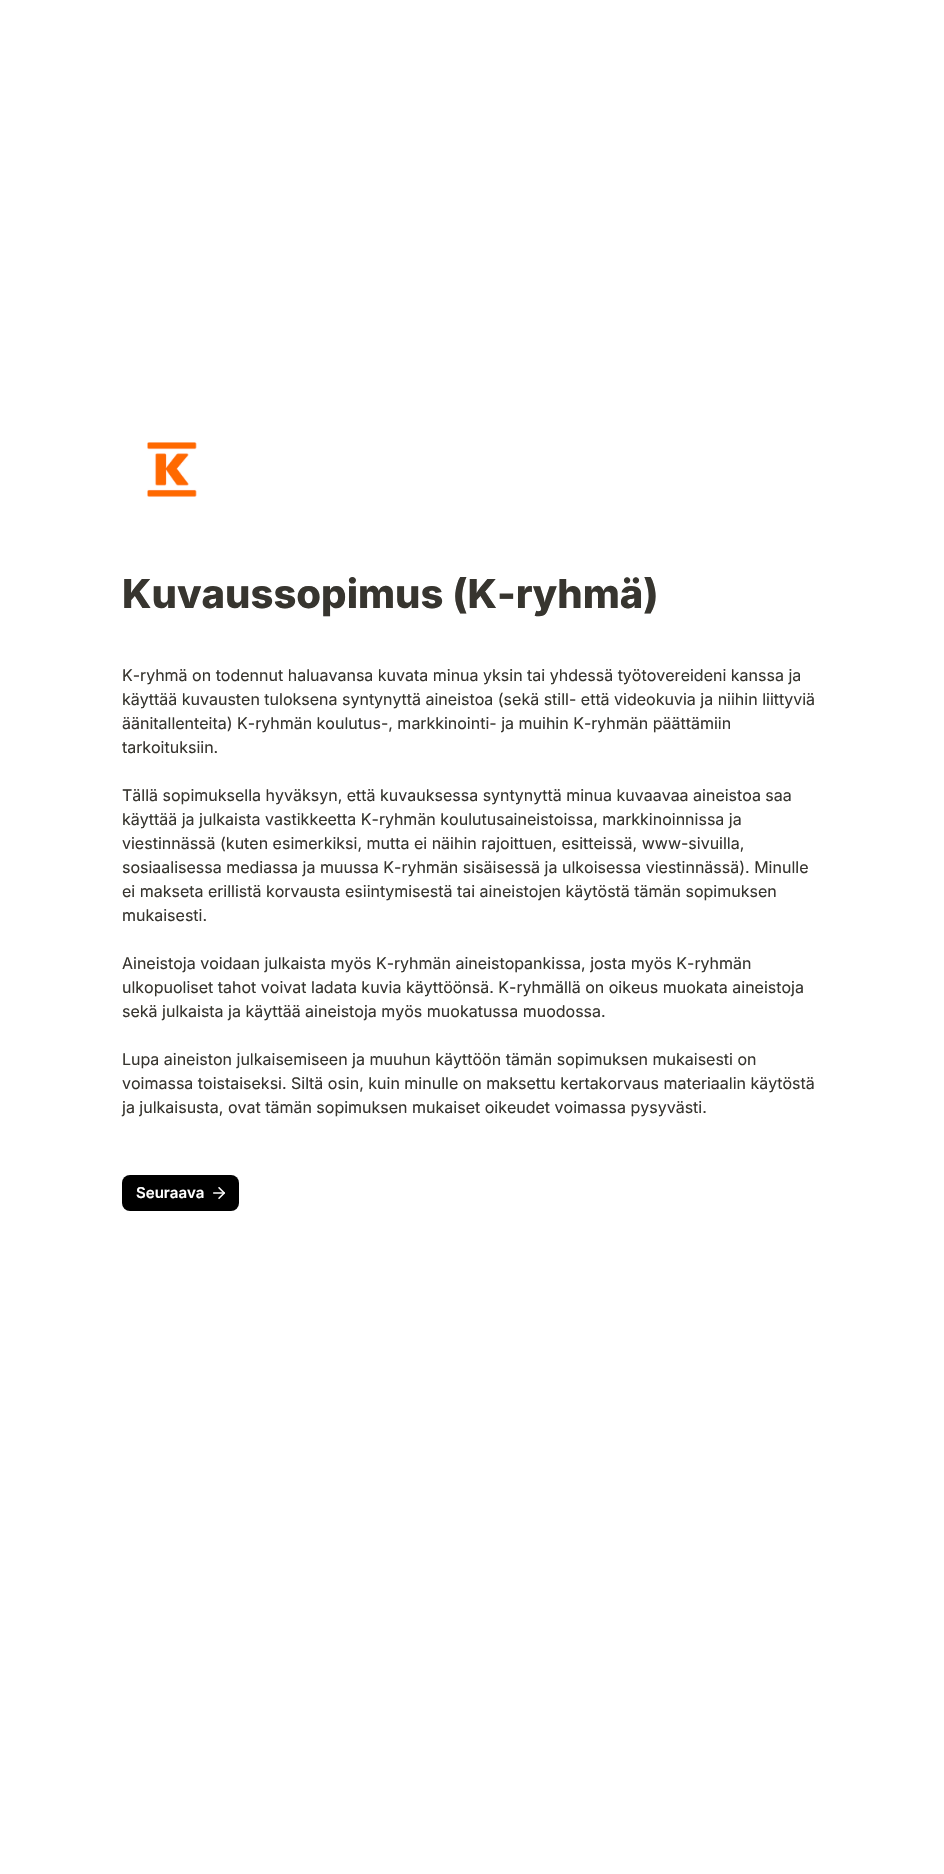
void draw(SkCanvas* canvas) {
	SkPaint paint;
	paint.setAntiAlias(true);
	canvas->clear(0xffffffff);
	canvas->drawImageRect(SkImages::DeferredFromEncodedData(SkData::MakeFromFileName("img1.png")), SkRect::MakeXYWH(147, 442, 50, 55), SkSamplingOptions());
	SkFont f1(fontMgr->matchFamilyStyle("Inter", SkFontStyle(800, SkFontStyle::kNormal_Width, SkFontStyle::kUpright_Slant)), 40);
	f1.setSubpixel(true);
	paint.setColor(0xff37352f);
	canvas->drawString("Kuvaussopimus (K-ryhmä)", 122, 608, f1, paint);
	SkFont f2(fontMgr->matchFamilyStyle("Inter", SkFontStyle::Normal()), 16);
	f2.setSubpixel(true);
	canvas->drawString("K-ryhmä on todennut haluavansa kuvata minua yksin tai yhdessä työtovereideni kanssa ja", 122, 681, f2, paint);
	canvas->drawString("käyttää kuvausten tuloksena syntynyttä aineistoa (sekä still- että videokuvia ja niihin liittyviä", 122, 705, f2, paint);
	canvas->drawString("äänitallenteita) K-ryhmän koulutus-, markkinointi- ja muihin K-ryhmän päättämiin", 122, 729, f2, paint);
	canvas->drawString("tarkoituksiin.", 122, 753, f2, paint);
	canvas->drawString("Tällä sopimuksella hyväksyn, että kuvauksessa syntynyttä minua kuvaavaa aineistoa saa", 122, 801, f2, paint);
	canvas->drawString("käyttää ja julkaista vastikkeetta K-ryhmän koulutusaineistoissa, markkinoinnissa ja", 122, 825, f2, paint);
	canvas->drawString("viestinnässä (kuten esimerkiksi, mutta ei näihin rajoittuen, esitteissä, www-sivuilla,", 122, 849, f2, paint);
	canvas->drawString("sosiaalisessa mediassa ja muussa K-ryhmän sisäisessä ja ulkoisessa viestinnässä). Minulle", 122, 873, f2, paint);
	canvas->drawString("ei makseta erillistä korvausta esiintymisestä tai aineistojen käytöstä tämän sopimuksen", 122, 897, f2, paint);
	canvas->drawString("mukaisesti.", 122, 921, f2, paint);
	canvas->drawString("Aineistoja voidaan julkaista myös K-ryhmän aineistopankissa, josta myös K-ryhmän", 122, 969, f2, paint);
	canvas->drawString("ulkopuoliset tahot voivat ladata kuvia käyttöönsä. K-ryhmällä on oikeus muokata aineistoja", 122, 993, f2, paint);
	canvas->drawString("sekä julkaista ja käyttää aineistoja myös muokatussa muodossa.", 122, 1017, f2, paint);
	canvas->drawString("Lupa aineiston julkaisemiseen ja muuhun käyttöön tämän sopimuksen mukaisesti on", 122, 1065, f2, paint);
	canvas->drawString("voimassa toistaiseksi. Siltä osin, kuin minulle on maksettu kertakorvaus materiaalin käytöstä", 122, 1089, f2, paint);
	canvas->drawString("ja julkaisusta, ovat tämän sopimuksen mukaiset oikeudet voimassa pysyvästi.", 122, 1113, f2, paint);
	paint.setColor(0xff000000);
	canvas->drawRoundRect(SkRect::MakeXYWH(122, 1175, 117, 36), 8, 8, paint);
	SkFont f3(fontMgr->matchFamilyStyle("Inter", SkFontStyle(600, SkFontStyle::kNormal_Width, SkFontStyle::kUpright_Slant)), 15);
	f3.setSubpixel(true);
	paint.setColor(0xffffffff);
	canvas->drawString("Seuraava", 136, 1198, f3, paint);
	canvas->drawImageRect(SkImages::DeferredFromEncodedData(SkData::MakeFromFileName("img2.png")), SkRect::MakeXYWH(213, 1187, 12, 12), SkSamplingOptions());
}
